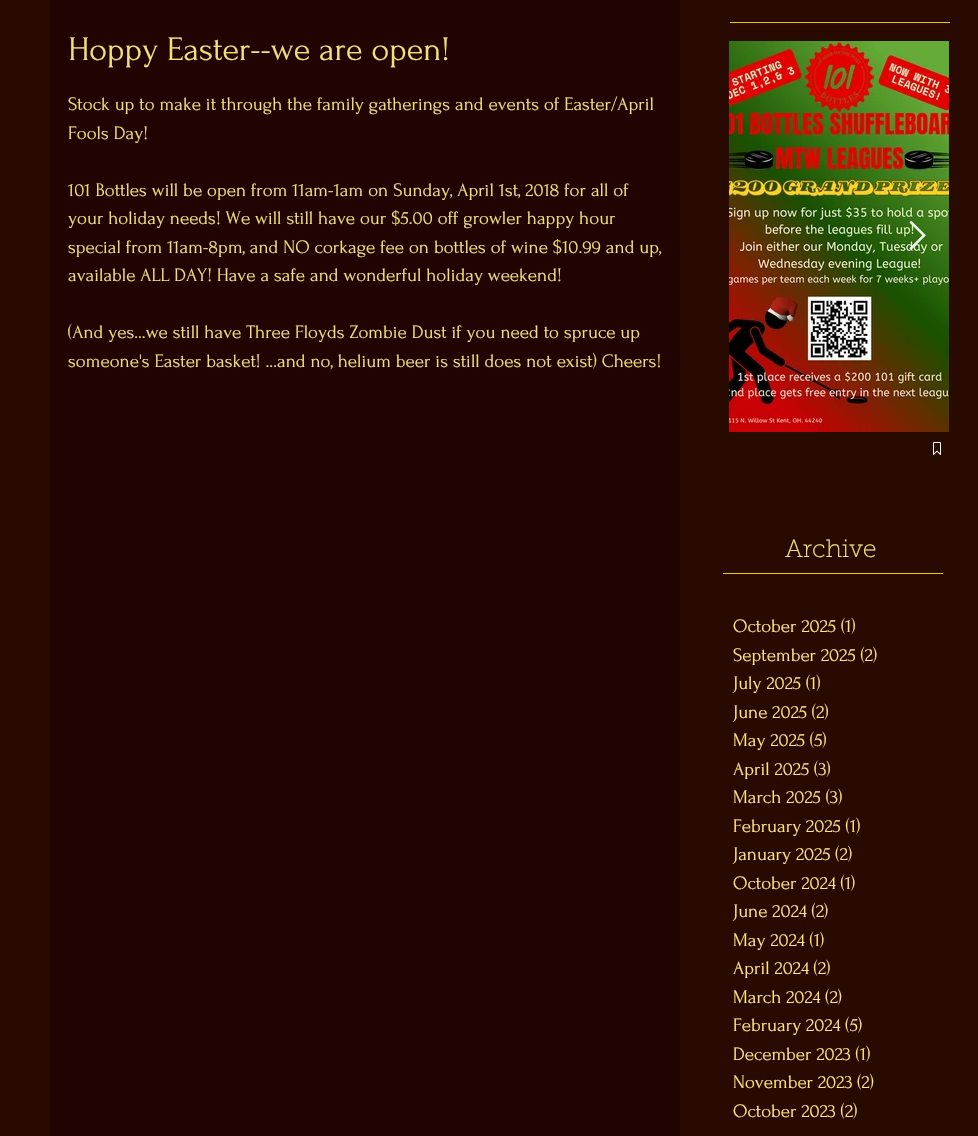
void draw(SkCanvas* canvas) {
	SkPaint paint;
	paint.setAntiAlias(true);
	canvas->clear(0xff280a00);
	paint.setColor(0xffeacb00);
	canvas->drawRect(SkRect::MakeXYWH(730, 22, 220, 1), paint);
	paint.setColor(0xff210302);
	canvas->drawRect(SkRect::MakeXYWH(50, 0, 630, 1136), paint);
	SkFont f1(fontMgr->matchFamilyStyle("Forum", SkFontStyle::Normal()), 34);
	f1.setSubpixel(true);
	paint.setColor(0xfff1e178);
	canvas->drawString("Hoppy Easter--we are open!", 68, 60, f1, paint);
	SkFont f2(fontMgr->matchFamilyStyle("Forum", SkFontStyle::Normal()), 19);
	f2.setSubpixel(true);
	canvas->drawString("Stock up to make it through the family gatherings and events of Easter/April", 68, 110, f2, paint);
	canvas->drawString("Fools Day!", 68, 139, f2, paint);
	canvas->drawString("101 Bottles will be open from 11am-1am on Sunday, April 1st, 2018 for all of", 68, 196, f2, paint);
	canvas->drawString("your holiday needs! We will still have our $5.00 off growler happy hour", 68, 224, f2, paint);
	canvas->drawString("special from 11am-8pm, and NO corkage fee on bottles of wine $10.99 and up,", 68, 253, f2, paint);
	canvas->drawString("available ALL DAY! Have a safe and wonderful holiday weekend!", 68, 281, f2, paint);
	canvas->drawString("(And yes...we still have Three Floyds Zombie Dust if you need to spruce up", 68, 338, f2, paint);
	canvas->drawString("someone's Easter basket! ...and no, helium beer is still does not exist) Cheers!", 68, 367, f2, paint);
	canvas->drawImageRect(SkImages::DeferredFromEncodedData(SkData::MakeFromFileName("img1.png")), SkRect::MakeXYWH(729, 41, 220, 391), SkSamplingOptions());
	canvas->drawImageRect(SkImages::DeferredFromEncodedData(SkData::MakeFromFileName("img2.png")), SkRect::MakeXYWH(933, 442, 8, 13), SkSamplingOptions());
	canvas->drawImageRect(SkImages::DeferredFromEncodedData(SkData::MakeFromFileName("img3.png")), SkRect::MakeXYWH(909, 221, 17, 29), SkSamplingOptions());
	SkFont f3(fontMgr->matchFamilyStyle("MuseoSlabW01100", SkFontStyle(100, SkFontStyle::kNormal_Width, SkFontStyle::kUpright_Slant)), 25);
	f3.setSubpixel(true);
	canvas->drawString("Archive", 785, 557, f3, paint);
	paint.setColor(0xffeacb00);
	canvas->drawRect(SkRect::MakeXYWH(723, 573, 220, 1), paint);
	paint.setColor(0xffffe680);
	canvas->drawString("October 2025 (1)", 733, 632, f2, paint);
	canvas->drawString("September 2025 (2)", 733, 661, f2, paint);
	canvas->drawString("July 2025 (1)", 733, 689, f2, paint);
	canvas->drawString("June 2025 (2)", 733, 718, f2, paint);
	canvas->drawString("May 2025 (5)", 733, 746, f2, paint);
	canvas->drawString("April 2025 (3)", 733, 775, f2, paint);
	canvas->drawString("March 2025 (3)", 733, 803, f2, paint);
	canvas->drawString("February 2025 (1)", 733, 832, f2, paint);
	canvas->drawString("January 2025 (2)", 733, 860, f2, paint);
	canvas->drawString("October 2024 (1)", 733, 889, f2, paint);
	canvas->drawString("June 2024 (2)", 733, 917, f2, paint);
	canvas->drawString("May 2024 (1)", 733, 946, f2, paint);
	canvas->drawString("April 2024 (2)", 733, 974, f2, paint);
	canvas->drawString("March 2024 (2)", 733, 1003, f2, paint);
	canvas->drawString("February 2024 (5)", 733, 1031, f2, paint);
	canvas->drawString("December 2023 (1)", 733, 1060, f2, paint);
	canvas->drawString("November 2023 (2)", 733, 1088, f2, paint);
	canvas->drawString("October 2023 (2)", 733, 1117, f2, paint);
}
